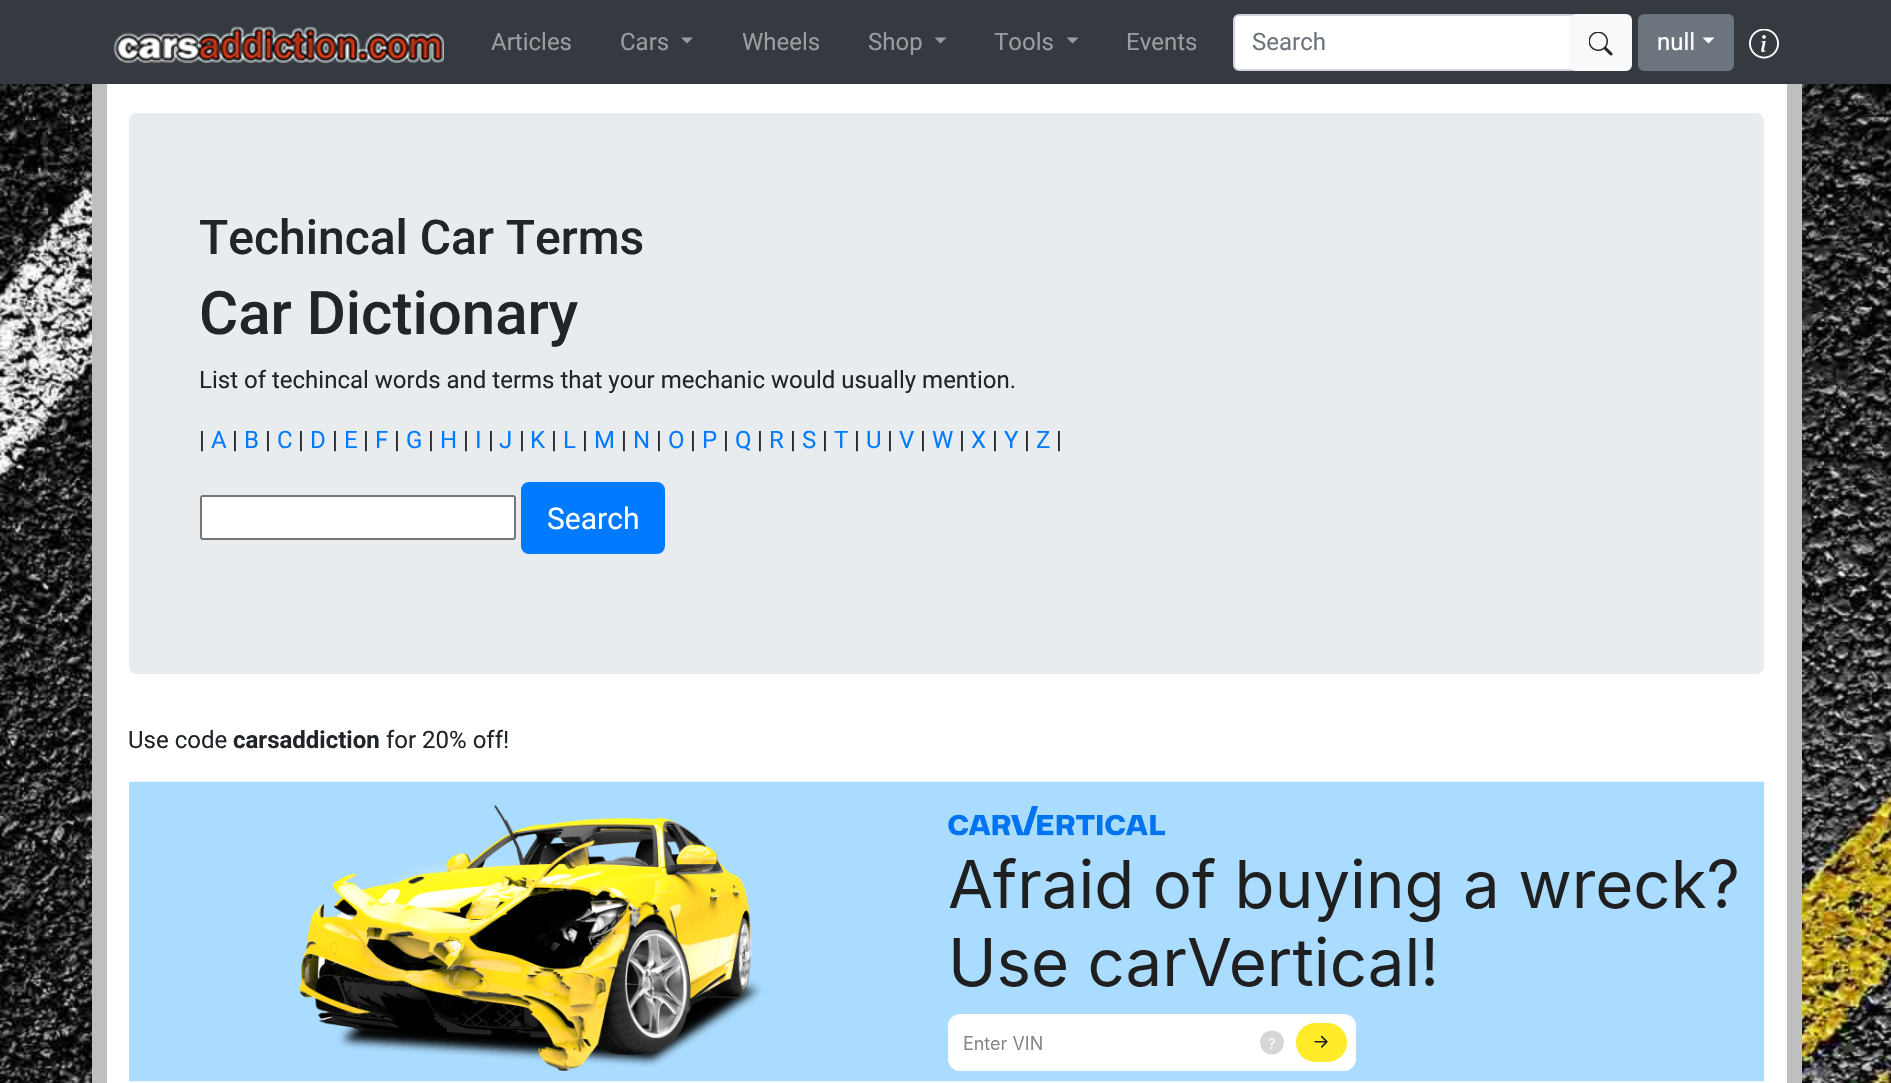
void draw(SkCanvas* canvas) {
	SkPaint paint;
	paint.setAntiAlias(true);
	auto svgPath = [&](const char* data, bool evenOdd = false) {
		SkPath result = *SkParsePath::FromSVGString(data);
		if (evenOdd) result.setFillType(SkPathFillType::kEvenOdd);
		return result;
	};
	canvas->clear(0xffffffff);
	canvas->drawImageRect(SkImages::DeferredFromEncodedData(SkData::MakeFromFileName("img1.png")), SkRect::MakeXYWH(0, 84, 1891, 999), SkSamplingOptions());
	paint.setColor(0xff343a40);
	canvas->drawRect(SkRect::MakeXYWH(0, 0, 1891, 84), paint);
	canvas->drawImageRect(SkImages::DeferredFromEncodedData(SkData::MakeFromFileName("img2.png")), SkRect::MakeXYWH(113, 26, 331, 37), SkSamplingOptions());
	SkFont f1(fontMgr->matchFamilyStyle("Roboto", SkFontStyle::Normal()), 24);
	f1.setSubpixel(true);
	paint.setColor(0xff9a9da0);
	canvas->drawString("Articles", 491, 50, f1, paint);
	canvas->drawString("Cars", 620, 50, f1, paint);
	canvas->drawPath(svgPath("M681 37.5H693L687 43.5Z"), paint);
	canvas->drawString("Wheels", 742, 50, f1, paint);
	canvas->drawString("Shop", 868, 50, f1, paint);
	canvas->drawPath(svgPath("M934.5 37.5H946.5L940.5 43.5Z"), paint);
	canvas->drawString("Tools", 994, 50, f1, paint);
	canvas->drawPath(svgPath("M1066.5 37.5H1078.5L1072.5 43.5Z"), paint);
	canvas->drawString("Events", 1126, 50, f1, paint);
	paint.setColor(0xffffffff);
	canvas->drawRoundRect(SkRect::MakeXYWH(1234, 15, 342, 55), 5, 5, paint);
	paint.setStroke(true);
	paint.setStrokeWidth(2);
	paint.setColor(0xffced4da);
	canvas->drawRoundRect(SkRect::MakeXYWH(1234, 15, 342, 55), 5, 5, paint);
	paint.setStroke(false);
	paint.setColor(0xff6c757d);
	canvas->drawString("Search", 1252, 50, f1, paint);
	paint.setColor(0xfff8f9fa);
	canvas->drawRoundRect(SkRect::MakeXYWH(1570, 15, 61, 55), 5, 5, paint);
	paint.setStroke(true);
	canvas->drawRoundRect(SkRect::MakeXYWH(1570, 15, 61, 55), 5, 5, paint);
	canvas->drawImageRect(SkImages::DeferredFromEncodedData(SkData::MakeFromFileName("img3.png")), SkRect::MakeXYWH(1589, 32, 24, 24), SkSamplingOptions());
	paint.setStroke(false);
	paint.setColor(0xff6c757d);
	canvas->drawRoundRect(SkRect::MakeXYWH(1639, 15, 94, 55), 5, 5, paint);
	paint.setStroke(true);
	canvas->drawRoundRect(SkRect::MakeXYWH(1639, 15, 94, 55), 5, 5, paint);
	paint.setStroke(false);
	paint.setColor(0xffffffff);
	canvas->drawString("null", 1657, 50, f1, paint);
	canvas->drawPath(svgPath("M1702.5 37.5H1714.5L1708.5 43.5Z"), paint);
	canvas->drawImageRect(SkImages::DeferredFromEncodedData(SkData::MakeFromFileName("img4.png")), SkRect::MakeXYWH(1749, 29, 30, 30), SkSamplingOptions());
	canvas->drawRect(SkRect::MakeXYWH(107, 84, 1680, 999), paint);
	paint.setColor(0xffbfbfbf);
	canvas->drawRect(SkRect::MakeXYWH(1787, 84, 15, 999), paint);
	canvas->drawRect(SkRect::MakeXYWH(92, 84, 15, 999), paint);
	paint.setColor(0xffe9ecef);
	canvas->drawRoundRect(SkRect::MakeXYWH(129, 113, 1635, 561), 8, 8, paint);
	SkFont f2(fontMgr->matchFamilyStyle("Roboto", SkFontStyle(500, SkFontStyle::kNormal_Width, SkFontStyle::kUpright_Slant)), 48);
	f2.setSubpixel(true);
	paint.setColor(0xff212529);
	canvas->drawString("Techincal Car Terms", 199, 254, f2, paint);
	SkFont f3(fontMgr->matchFamilyStyle("Roboto", SkFontStyle(500, SkFontStyle::kNormal_Width, SkFontStyle::kUpright_Slant)), 60);
	f3.setSubpixel(true);
	canvas->drawString("Car Dictionary", 199, 334, f3, paint);
	canvas->drawString("List of techincal words and terms that your mechanic would usually mention.", 199, 388, f1, paint);
	canvas->drawString("|", 199, 448, f1, paint);
	paint.setColor(0xff007bff);
	canvas->drawString("A", 211, 448, f1, paint);
	paint.setColor(0xff212529);
	canvas->drawString("|", 232, 448, f1, paint);
	paint.setColor(0xff007bff);
	canvas->drawString("B", 244, 448, f1, paint);
	paint.setColor(0xff212529);
	canvas->drawString("|", 265, 448, f1, paint);
	paint.setColor(0xff007bff);
	canvas->drawString("C", 277, 448, f1, paint);
	paint.setColor(0xff212529);
	canvas->drawString("|", 298, 448, f1, paint);
	paint.setColor(0xff007bff);
	canvas->drawString("D", 310, 448, f1, paint);
	paint.setColor(0xff212529);
	canvas->drawString("|", 332, 448, f1, paint);
	paint.setColor(0xff007bff);
	canvas->drawString("E", 344, 448, f1, paint);
	paint.setColor(0xff212529);
	canvas->drawString("|", 363, 448, f1, paint);
	paint.setColor(0xff007bff);
	canvas->drawString("F", 375, 448, f1, paint);
	paint.setColor(0xff212529);
	canvas->drawString("|", 394, 448, f1, paint);
	paint.setColor(0xff007bff);
	canvas->drawString("G", 406, 448, f1, paint);
	paint.setColor(0xff212529);
	canvas->drawString("|", 428, 448, f1, paint);
	paint.setColor(0xff007bff);
	canvas->drawString("H", 440, 448, f1, paint);
	paint.setColor(0xff212529);
	canvas->drawString("|", 463, 448, f1, paint);
	paint.setColor(0xff007bff);
	canvas->drawString("I", 475, 448, f1, paint);
	paint.setColor(0xff212529);
	canvas->drawString("|", 488, 448, f1, paint);
	paint.setColor(0xff007bff);
	canvas->drawString("J", 499, 448, f1, paint);
	paint.setColor(0xff212529);
	canvas->drawString("|", 519, 448, f1, paint);
	paint.setColor(0xff007bff);
	canvas->drawString("K", 530, 448, f1, paint);
	paint.setColor(0xff212529);
	canvas->drawString("|", 551, 448, f1, paint);
	paint.setColor(0xff007bff);
	canvas->drawString("L", 563, 448, f1, paint);
	paint.setColor(0xff212529);
	canvas->drawString("|", 582, 448, f1, paint);
	paint.setColor(0xff007bff);
	canvas->drawString("M", 594, 448, f1, paint);
	paint.setColor(0xff212529);
	canvas->drawString("|", 621, 448, f1, paint);
	paint.setColor(0xff007bff);
	canvas->drawString("N", 633, 448, f1, paint);
	paint.setColor(0xff212529);
	canvas->drawString("|", 656, 448, f1, paint);
	paint.setColor(0xff007bff);
	canvas->drawString("O", 668, 448, f1, paint);
	paint.setColor(0xff212529);
	canvas->drawString("|", 690, 448, f1, paint);
	paint.setColor(0xff007bff);
	canvas->drawString("P", 702, 448, f1, paint);
	paint.setColor(0xff212529);
	canvas->drawString("|", 723, 448, f1, paint);
	paint.setColor(0xff007bff);
	canvas->drawString("Q", 735, 448, f1, paint);
	paint.setColor(0xff212529);
	canvas->drawString("|", 757, 448, f1, paint);
	paint.setColor(0xff007bff);
	canvas->drawString("R", 769, 448, f1, paint);
	paint.setColor(0xff212529);
	canvas->drawString("|", 790, 448, f1, paint);
	paint.setColor(0xff007bff);
	canvas->drawString("S", 802, 448, f1, paint);
	paint.setColor(0xff212529);
	canvas->drawString("|", 822, 448, f1, paint);
	paint.setColor(0xff007bff);
	canvas->drawString("T", 834, 448, f1, paint);
	paint.setColor(0xff212529);
	canvas->drawString("|", 854, 448, f1, paint);
	paint.setColor(0xff007bff);
	canvas->drawString("U", 866, 448, f1, paint);
	paint.setColor(0xff212529);
	canvas->drawString("|", 887, 448, f1, paint);
	paint.setColor(0xff007bff);
	canvas->drawString("V", 899, 448, f1, paint);
	paint.setColor(0xff212529);
	canvas->drawString("|", 920, 448, f1, paint);
	paint.setColor(0xff007bff);
	canvas->drawString("W", 932, 448, f1, paint);
	paint.setColor(0xff212529);
	canvas->drawString("|", 959, 448, f1, paint);
	paint.setColor(0xff007bff);
	canvas->drawString("X", 971, 448, f1, paint);
	paint.setColor(0xff212529);
	canvas->drawString("|", 992, 448, f1, paint);
	paint.setColor(0xff007bff);
	canvas->drawString("Y", 1004, 448, f1, paint);
	paint.setColor(0xff212529);
	canvas->drawString("|", 1024, 448, f1, paint);
	paint.setColor(0xff007bff);
	canvas->drawString("Z", 1036, 448, f1, paint);
	paint.setColor(0xff212529);
	canvas->drawString("|", 1056, 448, f1, paint);
	paint.setColor(0xffffffff);
	canvas->drawRoundRect(SkRect::MakeXYWH(201, 496, 314, 43), 2, 2, paint);
	paint.setStroke(true);
	paint.setColor(0xff767676);
	canvas->drawRoundRect(SkRect::MakeXYWH(201, 496, 314, 43), 2, 2, paint);
	paint.setStroke(false);
	paint.setColor(0xff007bff);
	canvas->drawRoundRect(SkRect::MakeXYWH(522, 483, 142, 70), 7, 7, paint);
	paint.setStroke(true);
	canvas->drawRoundRect(SkRect::MakeXYWH(522, 483, 142, 70), 7, 7, paint);
	SkFont f4(fontMgr->matchFamilyStyle("Roboto", SkFontStyle::Normal()), 30);
	f4.setSubpixel(true);
	paint.setStroke(false);
	paint.setColor(0xffffffff);
	canvas->drawString("Search", 547, 529, f4, paint);
	paint.setColor(0xff212529);
	canvas->drawString("Use code", 128, 748, f1, paint);
	SkFont f5(fontMgr->matchFamilyStyle("Roboto", SkFontStyle::Bold()), 24);
	f5.setSubpixel(true);
	canvas->drawString("carsaddiction", 233, 748, f5, paint);
	canvas->drawString("for 20% off!", 386, 748, f1, paint);
	canvas->drawImageRect(SkImages::DeferredFromEncodedData(SkData::MakeFromFileName("img5.png")), SkRect::MakeXYWH(129, 781, 1635, 301), SkSamplingOptions());
	SkFont f6(fontMgr->matchFamilyStyle("Liberation Sans", SkFontStyle::Bold()), 24);
	f6.setSubpixel(true);
	paint.setColor(0xff393c37);
	canvas->drawString("▲", 1838, 1052, f6, paint);
}
